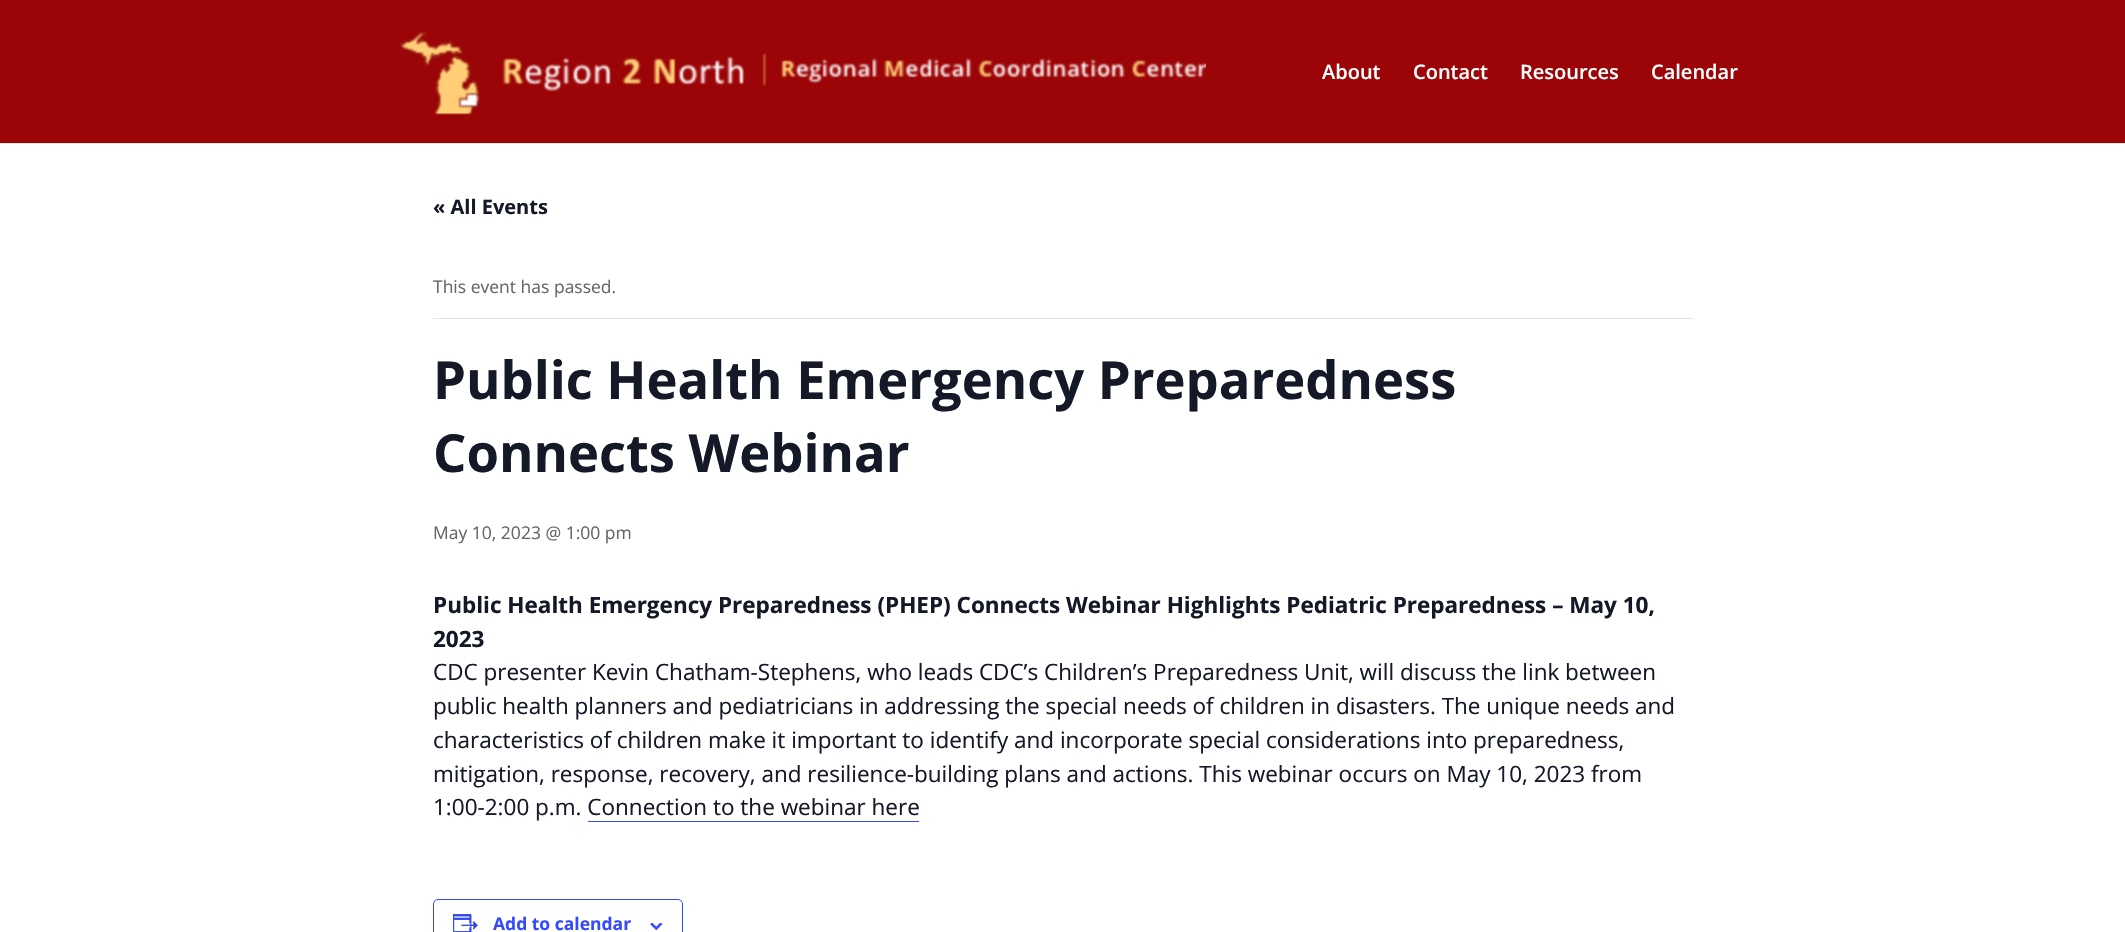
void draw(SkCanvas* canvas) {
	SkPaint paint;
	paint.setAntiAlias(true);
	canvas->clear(0xffffffff);
	paint.setColor(0xffe6e6e6);
	canvas->drawRect(SkRect::MakeXYWH(0, 143, 2125, 1), paint);
	paint.setColor(0xff9c0507);
	canvas->drawRect(SkRect::MakeXYWH(0, 0, 2125, 143), paint);
	canvas->drawImageRect(SkImages::DeferredFromEncodedData(SkData::MakeFromFileName("img1.png")), SkRect::MakeXYWH(399, 31, 807, 84), SkSamplingOptions());
	SkFont f1(fontMgr->matchFamilyStyle("Open Sans", SkFontStyle(600, SkFontStyle::kNormal_Width, SkFontStyle::kUpright_Slant)), 20);
	f1.setSubpixel(true);
	paint.setColor(0xffffffff);
	canvas->drawString("About", 1322, 79, f1, paint);
	canvas->drawString("Contact", 1413, 79, f1, paint);
	canvas->drawString("Resources", 1520, 79, f1, paint);
	canvas->drawString("Calendar", 1651, 79, f1, paint);
	SkFont f2(fontMgr->matchFamilyStyle("Open Sans", SkFontStyle::Bold()), 20);
	f2.setSubpixel(true);
	paint.setColor(0xff141827);
	canvas->drawString("« All Events", 433, 214, f2, paint);
	paint.setColor(0xffe4e4e4);
	canvas->drawRect(SkRect::MakeXYWH(433, 318, 1260, 1), paint);
	SkFont f3(fontMgr->matchFamilyStyle("Open Sans", SkFontStyle::Normal()), 17.5);
	f3.setSubpixel(true);
	paint.setColor(0xff666666);
	canvas->drawString("This event has passed.", 433, 293, f3, paint);
	SkFont f4(fontMgr->matchFamilyStyle("Open Sans", SkFontStyle::Bold()), 52.5);
	f4.setSubpixel(true);
	paint.setColor(0xff141827);
	canvas->drawString("Public Health Emergency Preparedness", 433, 399, f4, paint);
	canvas->drawString("Connects Webinar", 433, 472, f4, paint);
	paint.setColor(0xff666666);
	canvas->drawString("May 10, 2023 @ 1:00 pm", 433, 539, f3, paint);
	SkFont f5(fontMgr->matchFamilyStyle("Open Sans", SkFontStyle::Bold()), 22.5);
	f5.setSubpixel(true);
	paint.setColor(0xff141827);
	canvas->drawString("Public Health Emergency Preparedness (PHEP) Connects Webinar Highlights Pediatric Preparedness – May 10,", 433, 613, f5, paint);
	canvas->drawString("2023", 433, 647, f5, paint);
	SkFont f6(fontMgr->matchFamilyStyle("Open Sans", SkFontStyle::Normal()), 22.5);
	f6.setSubpixel(true);
	canvas->drawString("CDC presenter Kevin Chatham-Stephens, who leads CDC’s Children’s Preparedness Unit, will discuss the link between", 433, 680, f6, paint);
	canvas->drawString("public health planners and pediatricians in addressing the special needs of children in disasters. The unique needs and", 433, 714, f6, paint);
	canvas->drawString("characteristics of children make it important to identify and incorporate special considerations into preparedness,", 433, 748, f6, paint);
	canvas->drawString("mitigation, response, recovery, and resilience-building plans and actions. This webinar occurs on May 10, 2023 from", 433, 782, f6, paint);
	canvas->drawString("1:00-2:00 p.m. Connection to the webinar here", 433, 815, f6, paint);
	paint.setColor(0xff334aff);
	canvas->drawRect(SkRect::MakeXYWH(588, 821, 331, 1), paint);
	paint.setStroke(true);
	paint.setStrokeWidth(1);
	canvas->drawRoundRect(SkRect::MakeXYWH(433.5, 899.5, 249, 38), 4.5, 4.5, paint);
	canvas->drawImageRect(SkImages::DeferredFromEncodedData(SkData::MakeFromFileName("img2.png")), SkRect::MakeXYWH(453, 914, 25, 18), SkSamplingOptions());
	SkFont f7(fontMgr->matchFamilyStyle("Open Sans", SkFontStyle::Bold()), 17.5);
	f7.setSubpixel(true);
	paint.setStroke(false);
	canvas->drawString("Add to calendar", 493, 930, f7, paint);
	canvas->drawImageRect(SkImages::DeferredFromEncodedData(SkData::MakeFromFileName("img3.png")), SkRect::MakeXYWH(650, 923, 13, 7), SkSamplingOptions());
}
